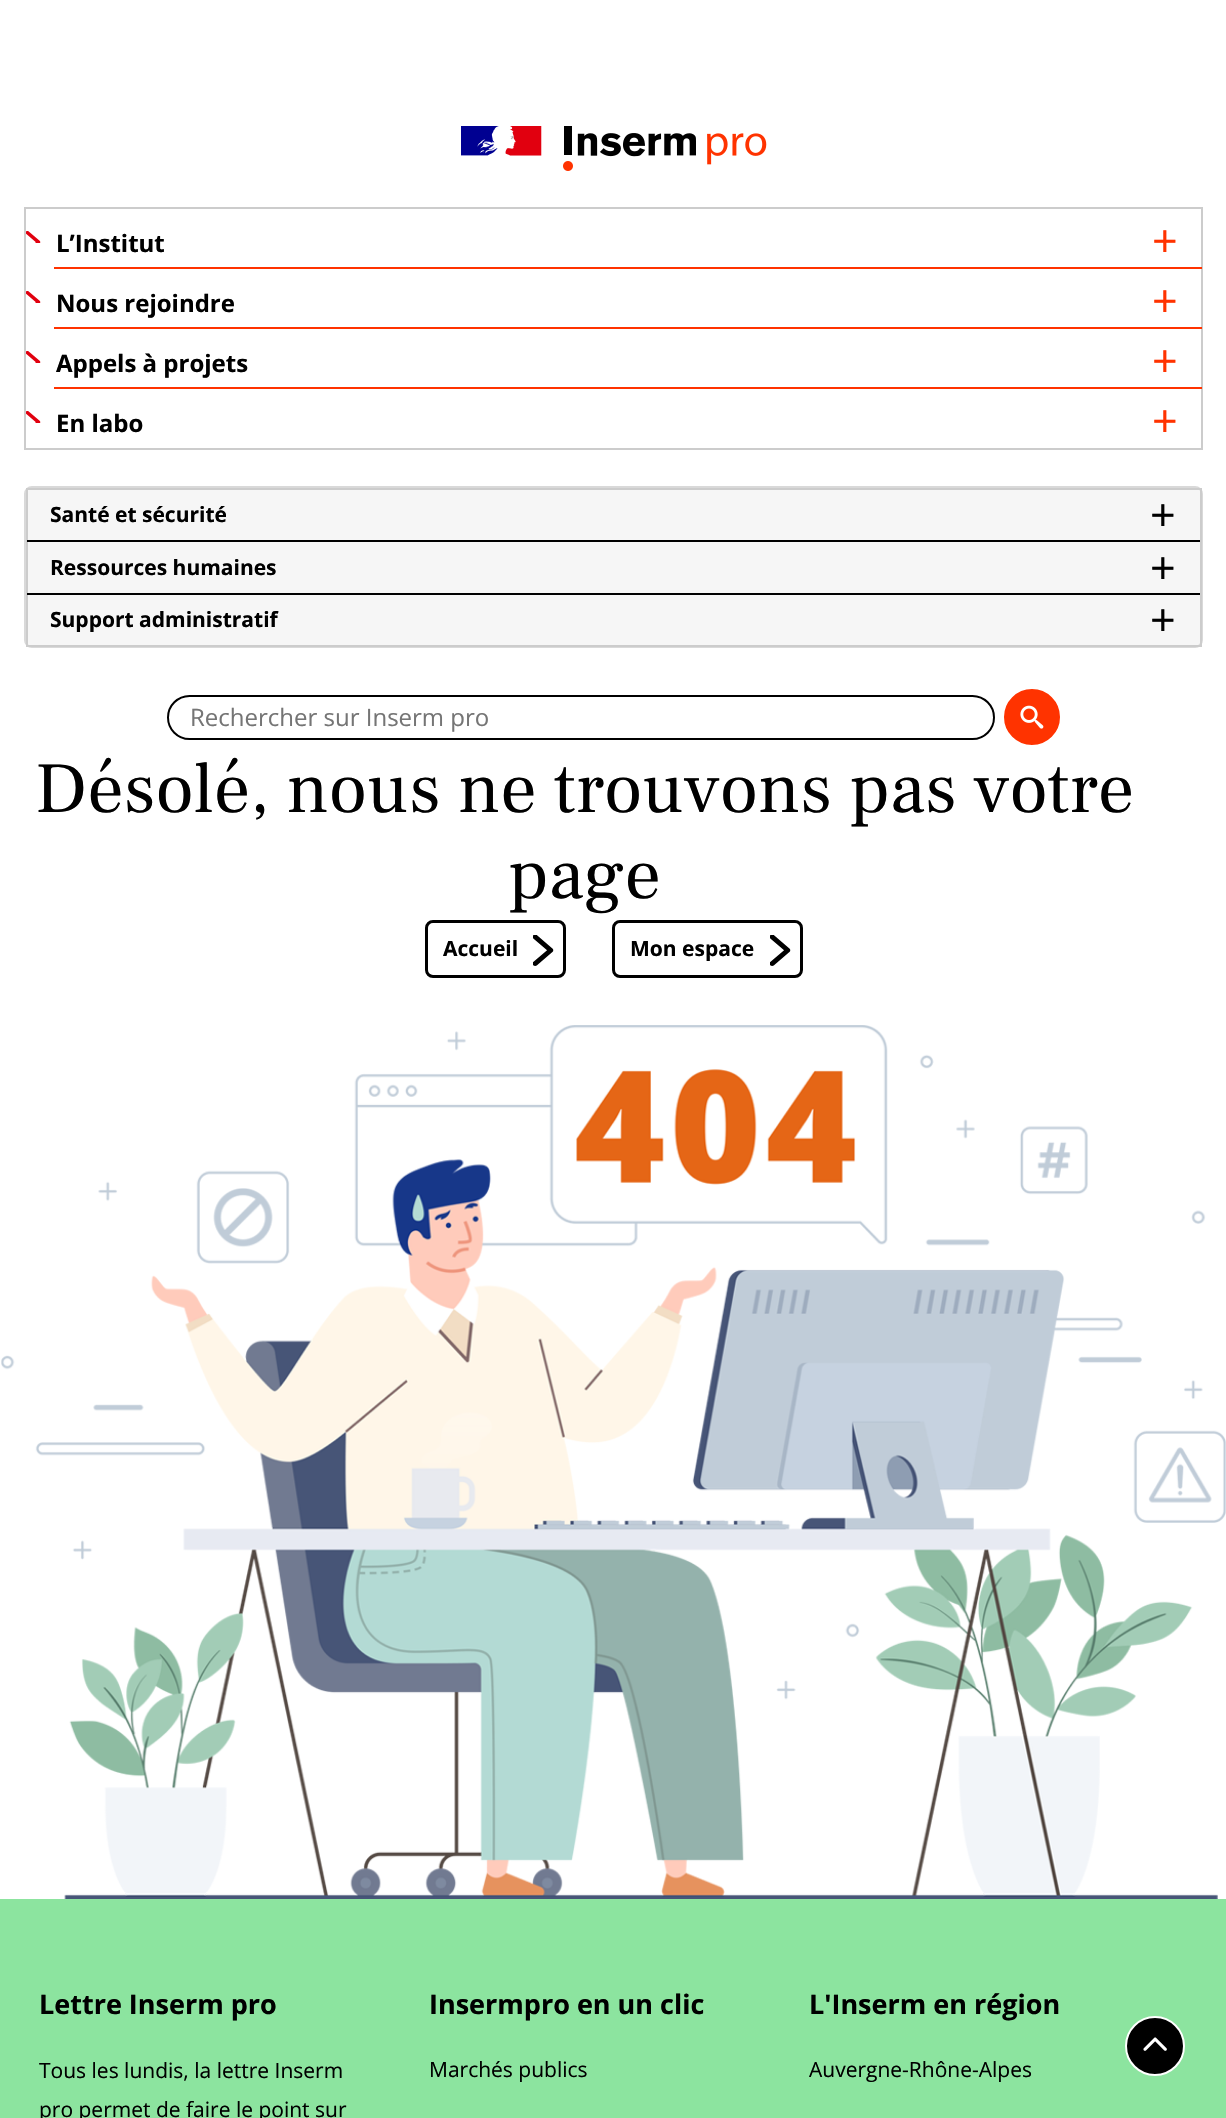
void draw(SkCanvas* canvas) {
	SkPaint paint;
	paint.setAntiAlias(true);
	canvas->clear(0xffffffff);
	canvas->drawImageRect(SkImages::DeferredFromEncodedData(SkData::MakeFromFileName("img1.png")), SkRect::MakeXYWH(461, 126, 306, 45), SkSamplingOptions());
	paint.setStroke(true);
	paint.setStrokeWidth(2);
	paint.setColor(0xffcccccc);
	canvas->drawRect(SkRect::MakeXYWH(25, 208, 1177, 241), paint);
	canvas->drawImageRect(SkImages::DeferredFromEncodedData(SkData::MakeFromFileName("img2.png")), SkRect::MakeXYWH(26, 231, 15, 12), SkSamplingOptions());
	SkFont f1(fontMgr->matchFamilyStyle("Open Sans", SkFontStyle::Bold()), 24);
	f1.setSubpixel(true);
	paint.setStroke(false);
	paint.setColor(0xff000000);
	canvas->drawString("L’Institut", 56, 252, f1, paint);
	SkFont f2(fontMgr->matchFamilyStyle("Open Sans", SkFontStyle::Normal()), 45);
	f2.setSubpixel(true);
	paint.setColor(0xffff3300);
	canvas->drawString("+", 1152, 257, f2, paint);
	canvas->drawRect(SkRect::MakeXYWH(54, 267, 1148, 2), paint);
	canvas->drawImageRect(SkImages::DeferredFromEncodedData(SkData::MakeFromFileName("img2.png")), SkRect::MakeXYWH(26, 291, 15, 12), SkSamplingOptions());
	paint.setColor(0xff000000);
	canvas->drawString("Nous rejoindre", 56, 312, f1, paint);
	paint.setColor(0xffff3300);
	canvas->drawString("+", 1152, 317, f2, paint);
	canvas->drawRect(SkRect::MakeXYWH(54, 327, 1148, 2), paint);
	canvas->drawImageRect(SkImages::DeferredFromEncodedData(SkData::MakeFromFileName("img2.png")), SkRect::MakeXYWH(26, 351, 15, 12), SkSamplingOptions());
	paint.setColor(0xff000000);
	canvas->drawString("Appels à projets", 56, 372, f1, paint);
	paint.setColor(0xffff3300);
	canvas->drawString("+", 1152, 377, f2, paint);
	canvas->drawRect(SkRect::MakeXYWH(54, 387, 1148, 2), paint);
	canvas->drawImageRect(SkImages::DeferredFromEncodedData(SkData::MakeFromFileName("img2.png")), SkRect::MakeXYWH(26, 411, 15, 12), SkSamplingOptions());
	paint.setColor(0xff000000);
	canvas->drawString("En labo", 56, 432, f1, paint);
	paint.setColor(0xffff3300);
	canvas->drawString("+", 1152, 437, f2, paint);
	paint.setColor(0xfff6f6f6);
	canvas->drawRoundRect(SkRect::MakeXYWH(25, 487, 1177, 160), 7, 7, paint);
	paint.setStroke(true);
	paint.setColor(0xffd9d9d9);
	canvas->drawRoundRect(SkRect::MakeXYWH(25, 487, 1177, 160), 7, 7, paint);
	paint.setColor(0xffcccccc);
	canvas->drawRect(SkRect::MakeXYWH(27, 489, 1174, 157), paint);
	SkFont f3(fontMgr->matchFamilyStyle("Open Sans", SkFontStyle::Bold()), 21);
	f3.setSubpixel(true);
	paint.setStroke(false);
	paint.setColor(0xff000000);
	canvas->drawString("Santé et sécurité", 50, 522, f3, paint);
	canvas->drawString("+", 1150, 531, f2, paint);
	canvas->drawRect(SkRect::MakeXYWH(27, 540, 1173, 2), paint);
	canvas->drawString("Ressources humaines", 50, 575, f3, paint);
	canvas->drawString("+", 1150, 584, f2, paint);
	canvas->drawRect(SkRect::MakeXYWH(27, 593, 1173, 2), paint);
	canvas->drawString("Support administratif", 50, 627, f3, paint);
	canvas->drawString("+", 1150, 636, f2, paint);
	paint.setStroke(true);
	canvas->drawRoundRect(SkRect::MakeXYWH(168, 696, 826, 43), 21.5, 21.5, paint);
	SkFont f4(fontMgr->matchFamilyStyle("Open Sans", SkFontStyle::Normal()), 24);
	f4.setSubpixel(true);
	paint.setStroke(false);
	paint.setColor(0xff757575);
	canvas->drawString("Rechercher sur Inserm pro", 190, 726, f4, paint);
	paint.setColor(0xffff3300);
	canvas->drawCircle(1032, 717, 29, paint);
	paint.setStroke(true);
	paint.setColor(0xffffffff);
	canvas->drawCircle(1032, 717, 29, paint);
	canvas->drawImageRect(SkImages::DeferredFromEncodedData(SkData::MakeFromFileName("img3.png")), SkRect::MakeXYWH(1020, 705, 24, 24), SkSamplingOptions());
	SkFont f5(fontMgr->matchFamilyStyle("Frank Ruhl Libre", SkFontStyle::Normal()), 72);
	f5.setSubpixel(true);
	paint.setStroke(false);
	paint.setColor(0xff000000);
	canvas->drawString("Désolé, nous ne trouvons pas votre", 35, 812, f5, paint);
	canvas->drawString("page", 508, 898, f5, paint);
	paint.setStroke(true);
	paint.setStrokeWidth(3);
	canvas->drawRoundRect(SkRect::MakeXYWH(426.5, 921.5, 138, 55), 6.5, 6.5, paint);
	paint.setStroke(false);
	canvas->drawString("Accueil", 443, 956, f3, paint);
	canvas->drawImageRect(SkImages::DeferredFromEncodedData(SkData::MakeFromFileName("img4.png")), SkRect::MakeXYWH(533, 935, 21, 31), SkSamplingOptions());
	paint.setStroke(true);
	canvas->drawRoundRect(SkRect::MakeXYWH(613.5, 921.5, 188, 55), 6.5, 6.5, paint);
	paint.setStroke(false);
	canvas->drawString("Mon espace", 630, 956, f3, paint);
	canvas->drawImageRect(SkImages::DeferredFromEncodedData(SkData::MakeFromFileName("img4.png")), SkRect::MakeXYWH(770, 935, 21, 31), SkSamplingOptions());
	canvas->drawImageRect(SkImages::DeferredFromEncodedData(SkData::MakeFromFileName("img5.png")), SkRect::MakeXYWH(1, 1025, 1225, 874), SkSamplingOptions());
	paint.setColor(0xff8ce49f);
	canvas->drawRect(SkRect::MakeXYWH(0, 1899, 1226, 219), paint);
	SkFont f6(fontMgr->matchFamilyStyle("Open Sans", SkFontStyle::Bold()), 27);
	f6.setSubpixel(true);
	paint.setColor(0xff000000);
	canvas->drawString("Lettre Inserm pro", 39, 2014, f6, paint);
	SkFont f7(fontMgr->matchFamilyStyle("Open Sans", SkFontStyle::Normal()), 21);
	f7.setSubpixel(true);
	canvas->drawString("Tous les lundis, la lettre Inserm", 39, 2078, f7, paint);
	canvas->drawString("pro permet de faire le point sur", 39, 2117, f7, paint);
	canvas->drawString("Insermpro en un clic", 429, 2014, f6, paint);
	canvas->drawString("Marchés publics", 429, 2077, f7, paint);
	canvas->drawString("L'Inserm en région", 809, 2014, f6, paint);
	canvas->drawString("Auvergne-Rhône-Alpes", 809, 2077, f7, paint);
	canvas->drawCircle(1155, 2046, 29, paint);
	paint.setStroke(true);
	paint.setStrokeWidth(2);
	paint.setColor(0xffffffff);
	canvas->drawCircle(1155, 2046, 29, paint);
	canvas->drawImageRect(SkImages::DeferredFromEncodedData(SkData::MakeFromFileName("img6.png")), SkRect::MakeXYWH(1143, 2037, 24, 14), SkSamplingOptions());
}
